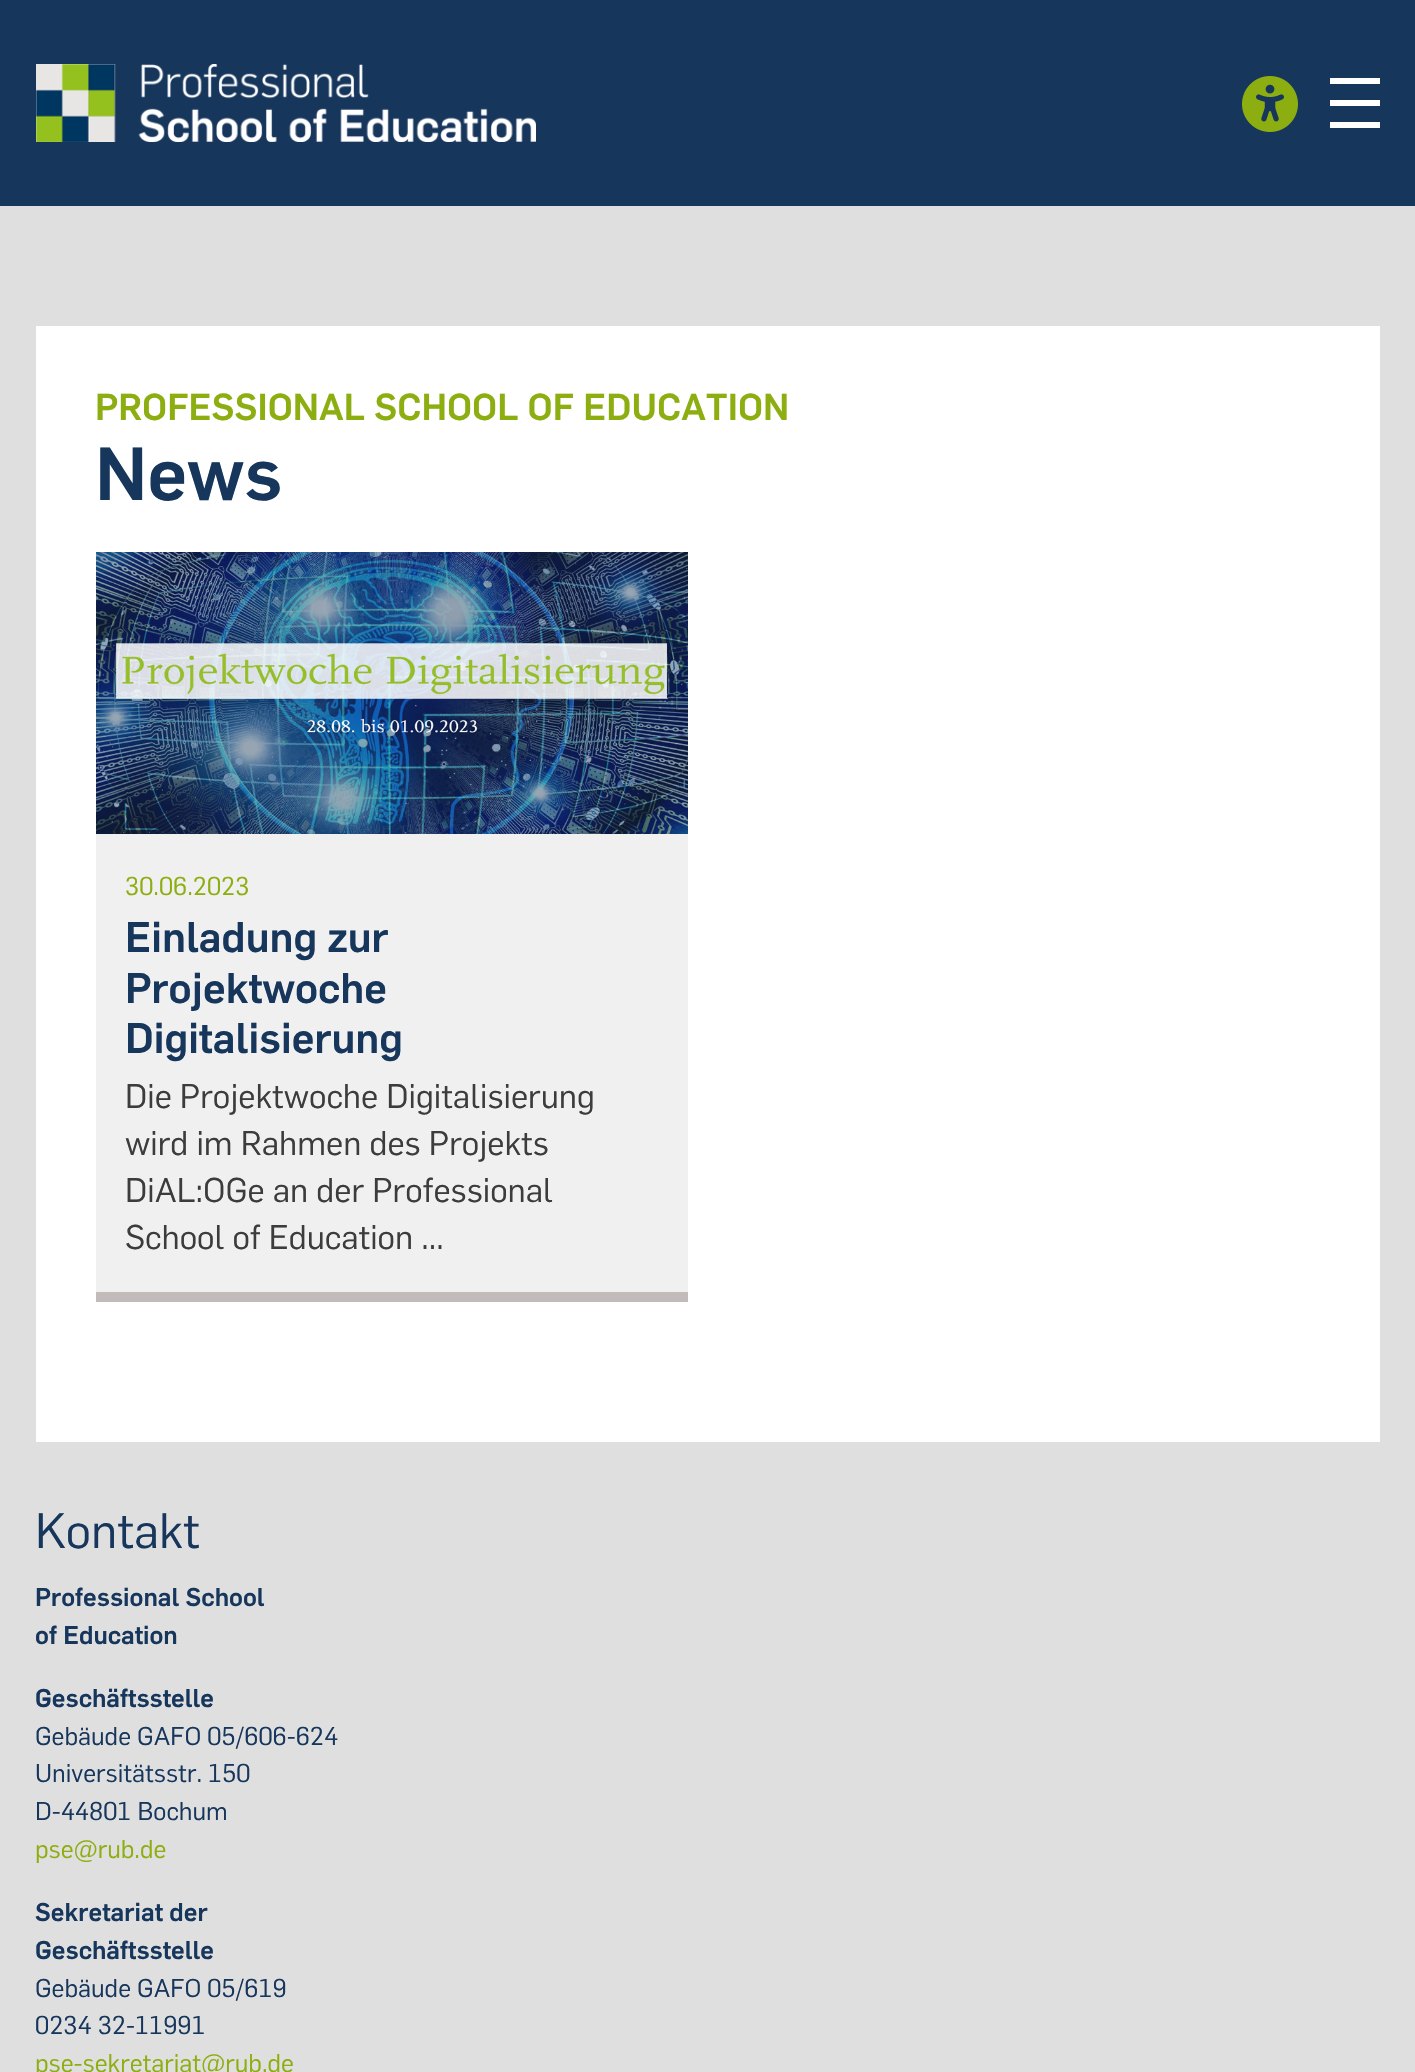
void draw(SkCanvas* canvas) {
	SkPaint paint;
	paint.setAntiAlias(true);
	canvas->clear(0xffdfdfdf);
	paint.setColor(0xff17365c);
	canvas->drawRect(SkRect::MakeXYWH(0, 0, 1415, 206), paint);
	canvas->drawImageRect(SkImages::DeferredFromEncodedData(SkData::MakeFromFileName("img1.png")), SkRect::MakeXYWH(36, 64, 500, 78), SkSamplingOptions());
	canvas->drawImageRect(SkImages::DeferredFromEncodedData(SkData::MakeFromFileName("img2.png")), SkRect::MakeXYWH(1242, 76, 56, 56), SkSamplingOptions());
	paint.setColor(0xffffffff);
	canvas->drawRect(SkRect::MakeXYWH(1330, 78, 50, 6), paint);
	canvas->drawRect(SkRect::MakeXYWH(1330, 100, 50, 6), paint);
	canvas->drawRect(SkRect::MakeXYWH(1330, 122, 50, 6), paint);
	canvas->drawRect(SkRect::MakeXYWH(36, 326, 1344, 1116), paint);
	SkFont f1(fontMgr->matchFamilyStyle("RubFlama", SkFontStyle::Bold()), 36.75);
	f1.setSubpixel(true);
	paint.setColor(0xff8dae10);
	canvas->drawString("PROFESSIONAL SCHOOL OF EDUCATION", 95, 420, f1, paint);
	SkFont f2(fontMgr->matchFamilyStyle("RubFlama", SkFontStyle::Bold()), 73.5);
	f2.setSubpixel(true);
	paint.setColor(0xff17365c);
	canvas->drawString("News", 95, 500, f2, paint);
	paint.setColor(0xfff0f0f0);
	canvas->drawRect(SkRect::MakeXYWH(96, 834, 592, 458), paint);
	paint.setColor(0xffc1bbba);
	canvas->drawRect(SkRect::MakeXYWH(96, 1292, 592, 10), paint);
	canvas->drawImageRect(SkImages::DeferredFromEncodedData(SkData::MakeFromFileName("img3.png")), SkRect::MakeXYWH(96, 552, 592, 282), SkSamplingOptions());
	SkFont f3(fontMgr->matchFamilyStyle("RubFlama", SkFontStyle::Normal()), 25.25);
	f3.setSubpixel(true);
	paint.setColor(0xff8dae10);
	canvas->drawString("30.06.2023", 125, 895, f3, paint);
	SkFont f4(fontMgr->matchFamilyStyle("RubFlama", SkFontStyle::Bold()), 42);
	f4.setSubpixel(true);
	paint.setColor(0xff17365c);
	canvas->drawString("Einladung zur", 125, 952, f4, paint);
	canvas->drawString("Projektwoche", 125, 1003, f4, paint);
	canvas->drawString("Digitalisierung", 125, 1053, f4, paint);
	SkFont f5(fontMgr->matchFamilyStyle("RubFlama", SkFontStyle::Normal()), 33.6);
	f5.setSubpixel(true);
	paint.setColor(0xff3c3c3c);
	canvas->drawString("Die Projektwoche Digitalisierung", 125, 1108, f5, paint);
	canvas->drawString("wird im Rahmen des Projekts", 125, 1155, f5, paint);
	canvas->drawString("DiAL:OGe an der Professional", 125, 1202, f5, paint);
	canvas->drawString("School of Education ...", 125, 1249, f5, paint);
	SkFont f6(fontMgr->matchFamilyStyle("RubFlama", SkFontStyle::Normal()), 48.5);
	f6.setSubpixel(true);
	paint.setColor(0xff17365c);
	canvas->drawString("Kontakt", 35, 1548, f6, paint);
	SkFont f7(fontMgr->matchFamilyStyle("RubFlama", SkFontStyle::Bold()), 25.25);
	f7.setSubpixel(true);
	canvas->drawString("Professional School", 35, 1606, f7, paint);
	canvas->drawString("of Education", 35, 1644, f7, paint);
	canvas->drawString("Geschäftsstelle", 35, 1707, f7, paint);
	canvas->drawString("Gebäude GAFO 05/606-624", 35, 1745, f3, paint);
	canvas->drawString("Universitätsstr. 150", 35, 1782, f3, paint);
	canvas->drawString("D-44801 Bochum", 35, 1820, f3, paint);
	paint.setColor(0xff8dae10);
	canvas->drawString("pse@rub.de", 35, 1858, f3, paint);
	paint.setColor(0xff17365c);
	canvas->drawString("Sekretariat der", 35, 1921, f7, paint);
	canvas->drawString("Geschäftsstelle", 35, 1959, f7, paint);
	canvas->drawString("Gebäude GAFO 05/619", 35, 1997, f3, paint);
	canvas->drawString("0234 32-11991", 35, 2034, f3, paint);
	paint.setColor(0xff8dae10);
	canvas->drawString("pse-sekretariat@rub.de", 35, 2072, f3, paint);
}
